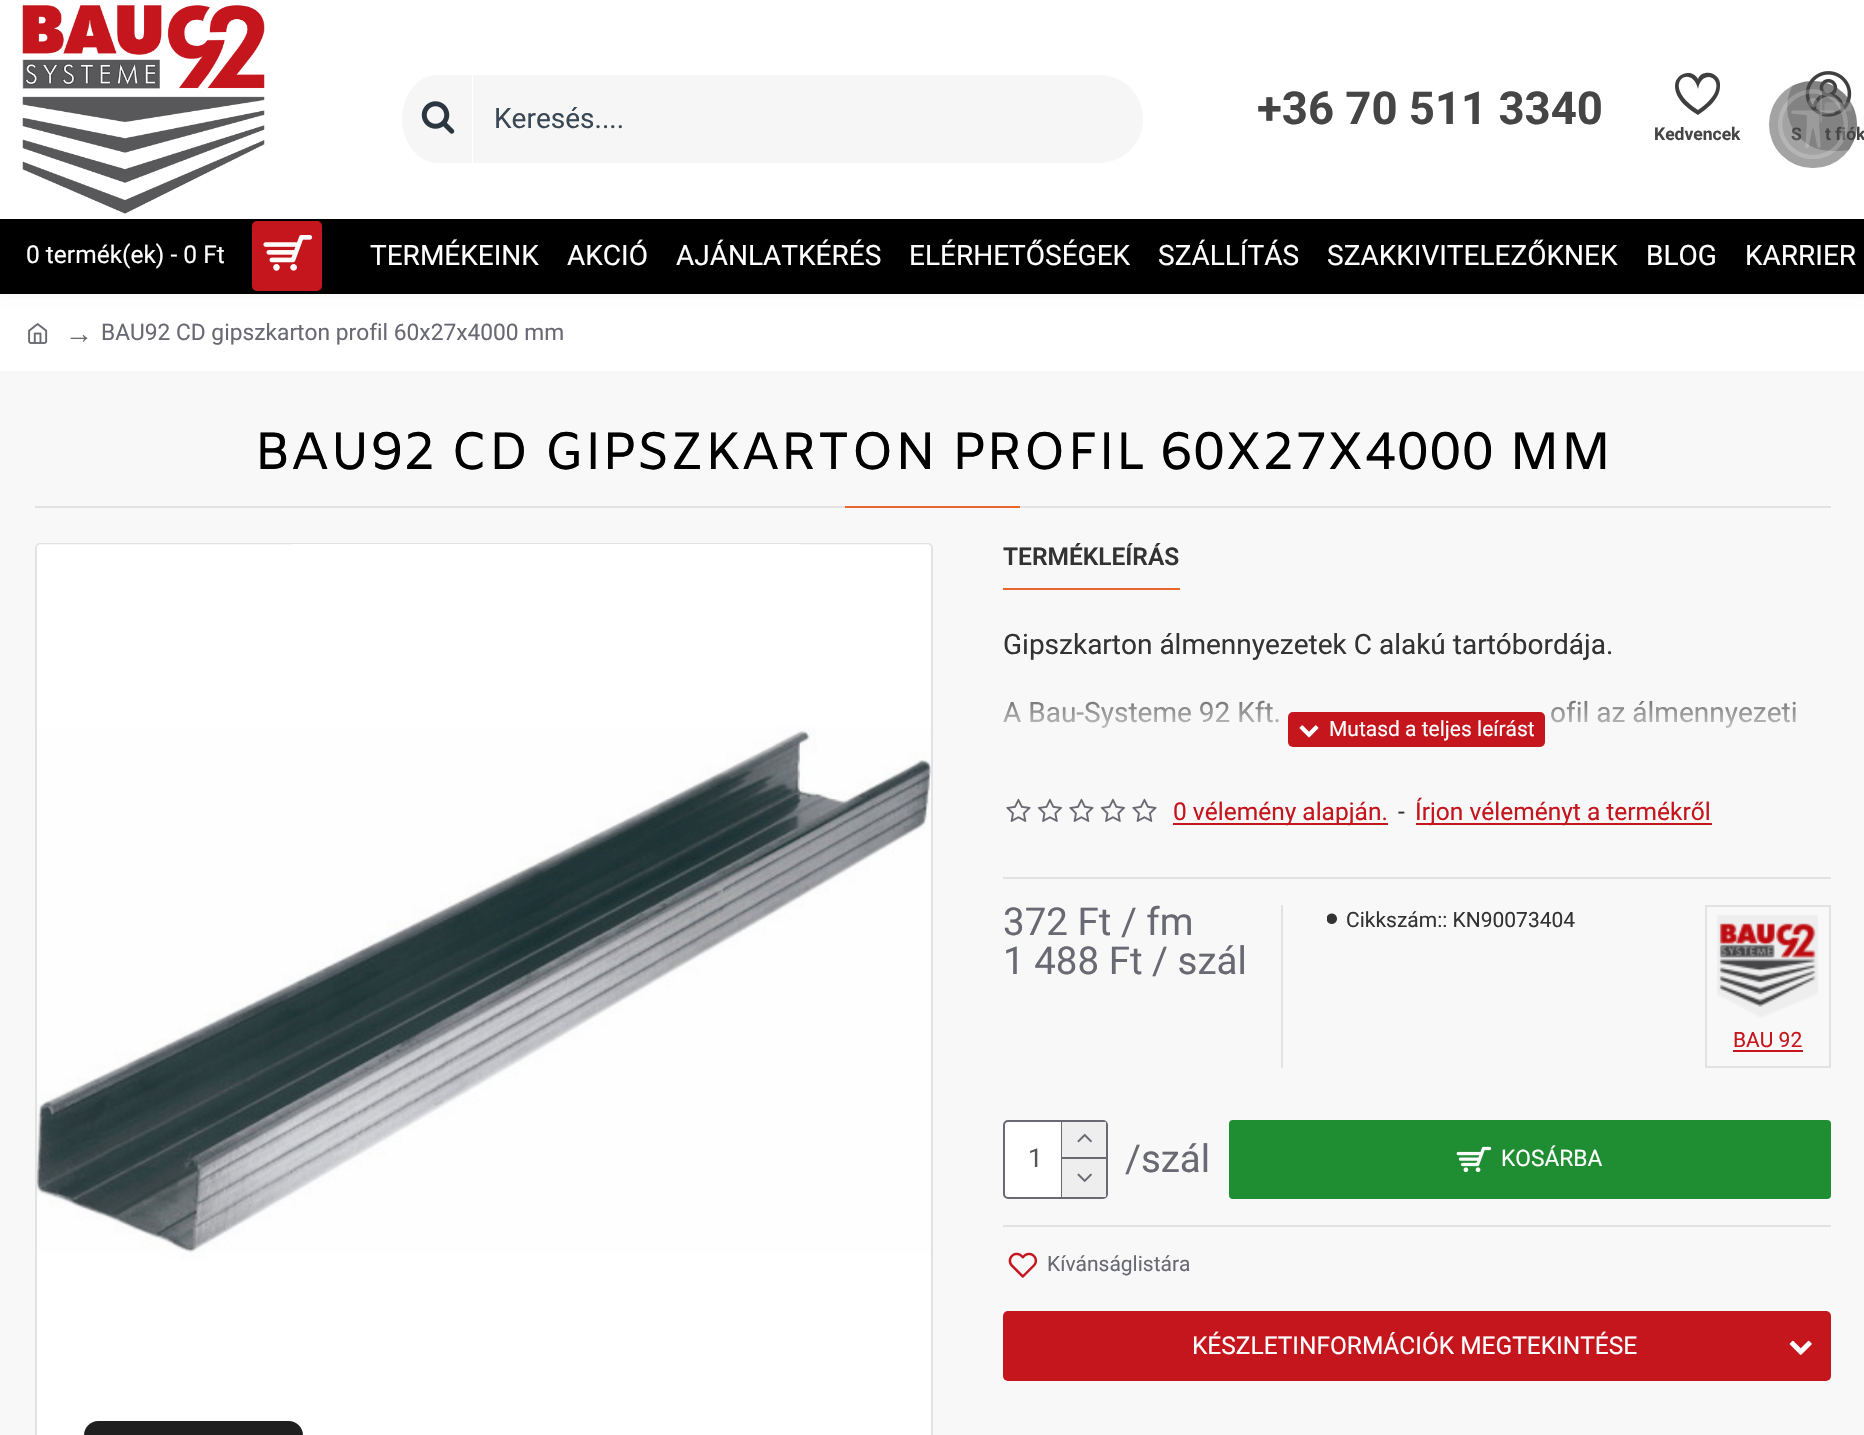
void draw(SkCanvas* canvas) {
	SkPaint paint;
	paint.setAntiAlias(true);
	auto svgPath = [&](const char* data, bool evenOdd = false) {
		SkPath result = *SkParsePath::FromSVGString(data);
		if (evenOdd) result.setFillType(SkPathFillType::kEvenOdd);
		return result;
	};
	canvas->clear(0xfff8f8f8);
	paint.setColor(0xffffffff);
	canvas->drawRect(SkRect::MakeXYWH(0, 294, 1864, 77), paint);
	paint.setColor(0x0d090909);
	paint.setMaskFilter(SkMaskFilter::MakeBlur(kNormal_SkBlurStyle, 5));
	canvas->drawRect(SkRect::MakeXYWH(0, 0, 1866, 294), paint);
	paint.setMaskFilter(nullptr);
	paint.setColor(0xffffffff);
	canvas->drawRect(SkRect::MakeXYWH(0, 0, 1864, 219), paint);
	canvas->drawImageRect(SkImages::DeferredFromEncodedData(SkData::MakeFromFileName("img5.png")), SkRect::MakeXYWH(1805, 71, 47, 46), SkSamplingOptions());
	SkFont f1(fontMgr->matchFamilyStyle("Roboto", SkFontStyle::Bold()), 17.5);
	f1.setSubpixel(true);
	paint.setColor(0xff454545);
	canvas->drawString("S", 1791, 140, f1, paint);
	canvas->drawString("t fiók", 1825, 140, f1, paint);
	paint.setColor(0x33ffffff);
	canvas->drawRoundRect(SkRect::MakeXYWH(1769, 81, 88, 87), 43.5, 43.5, paint);
	canvas->drawRoundRect(SkRect::MakeXYWH(1769, 81, 88, 87), 43.5, 43.5, paint);
	paint.setColor(0x33000000);
	canvas->drawRoundRect(SkRect::MakeXYWH(1769, 81, 88, 87), 43.5, 43.5, paint);
	canvas->save();
	canvas->clipPath(svgPath("M1812.5 81H1813.5C1837.5 81 1857 100.5 1857 124.5C1857 148.5 1837.5 168 1813.5 168H1812.5C1788.5 168 1769 148.5 1769 124.5C1769 100.5 1788.5 81 1812.5 81Z"), true);
	canvas->drawRoundRect(SkRect::MakeXYWH(1787, 63, 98, 88), 44, 44, paint);
	canvas->restore();
	canvas->drawImageRect(SkImages::DeferredFromEncodedData(SkData::MakeFromFileName("img1.png")), SkRect::MakeXYWH(1819, 91, 33, 32), SkSamplingOptions());
	canvas->drawRoundRect(SkRect::MakeXYWH(1769, 81, 88, 87), 43.5, 43.5, paint);
	canvas->drawImageRect(SkImages::DeferredFromEncodedData(SkData::MakeFromFileName("img2.png")), SkRect::MakeXYWH(1778, 89, 70, 70), SkSamplingOptions());
	canvas->drawImageRect(SkImages::DeferredFromEncodedData(SkData::MakeFromFileName("img3.png")), SkRect::MakeXYWH(22, 5, 243, 209), SkSamplingOptions());
	paint.setColor(0xfff6f6f6);
	canvas->drawPath(svgPath("M438 75H472V163H438C418 163 402 143 402 119C402 95 418 75 438 75Z"), paint);
	canvas->drawImageRect(SkImages::DeferredFromEncodedData(SkData::MakeFromFileName("img4.png")), SkRect::MakeXYWH(421, 101, 34, 33), SkSamplingOptions());
	canvas->drawPath(svgPath("M473 75H1099C1123.5 75 1143 94.5 1143 119C1143 143.5 1123.5 163 1099 163H473Z"), paint);
	SkFont f2(fontMgr->matchFamilyStyle("Roboto", SkFontStyle::Normal()), 28);
	f2.setSubpixel(true);
	paint.setColor(0xff3a4754);
	canvas->drawString("Keresés....", 494, 128, f2, paint);
	SkFont f3(fontMgr->matchFamilyStyle("Roboto", SkFontStyle::Bold()), 45.5);
	f3.setSubpixel(true);
	paint.setColor(0xff454545);
	canvas->drawString("+36 70 511 3340", 1257, 124, f3, paint);
	paint.setColor(0xff3f3f3f);
	canvas->drawPath(svgPath("M1698 89C1703 63 1737 84 1698 110C1658 84 1692 62 1698 89ZM1675 86C1675 99 1688 109 1698 115C1707 109 1720 99 1720 86C1720 83 1720 81 1718 78C1713 71 1701 71 1698 79C1692 68 1675 73 1675 86Z"), paint);
	paint.setColor(0xff454545);
	canvas->drawString("Kedvencek", 1654, 140, f1, paint);
	paint.setColor(0xff000000);
	canvas->drawRect(SkRect::MakeXYWH(0, 219, 1864, 75), paint);
	SkFont f4(fontMgr->matchFamilyStyle("Roboto", SkFontStyle::Normal()), 24.5);
	f4.setSubpixel(true);
	paint.setColor(0xffffffff);
	canvas->drawString("0 termék(ek) - 0 Ft", 26, 263, f4, paint);
	paint.setColor(0xffc4161c);
	canvas->drawRoundRect(SkRect::MakeXYWH(252, 221, 70, 70), 5, 5, paint);
	canvas->drawImageRect(SkImages::DeferredFromEncodedData(SkData::MakeFromFileName("img6.png")), SkRect::MakeXYWH(263, 235, 50, 36), SkSamplingOptions());
	paint.setColor(0xffffffff);
	canvas->drawString("TERMÉKEINK", 370, 265, f2, paint);
	canvas->drawString("AKCIÓ", 567, 265, f2, paint);
	canvas->drawString("AJÁNLATKÉRÉS", 676, 265, f2, paint);
	canvas->drawString("ELÉRHETŐSÉGEK", 909, 265, f2, paint);
	canvas->drawString("SZÁLLÍTÁS", 1158, 265, f2, paint);
	canvas->drawString("SZAKKIVITELEZŐKNEK", 1327, 265, f2, paint);
	canvas->drawString("BLOG", 1646, 265, f2, paint);
	canvas->drawString("KARRIER", 1745, 265, f2, paint);
	canvas->drawImageRect(SkImages::DeferredFromEncodedData(SkData::MakeFromFileName("img7.png")), SkRect::MakeXYWH(28, 323, 20, 21), SkSamplingOptions());
	SkFont f5(fontMgr->matchFamilyStyle("Liberation Serif", SkFontStyle::Normal()), 28);
	f5.setSubpixel(true);
	paint.setColor(0xff696973);
	canvas->drawString("→", 65, 343, f5, paint);
	SkFont f6(fontMgr->matchFamilyStyle("Roboto", SkFontStyle::Normal()), 22.75);
	f6.setSubpixel(true);
	canvas->drawString("BAU92 CD gipszkarton profil 60x27x4000 mm", 101, 340, f6, paint);
	paint.setColor(0xffe2e2e2);
	canvas->drawRect(SkRect::MakeXYWH(35, 506, 1796, 2), paint);
	SkFont f7(fontMgr->matchFamilyStyle("Amiko", SkFontStyle::Normal()), 52.5);
	f7.setSubpixel(true);
	paint.setColor(0xff000000);
	canvas->drawString("BAU92 CD GIPSZKARTON PROFIL 60X27X4000 MM", 254, 469, f7, paint);
	paint.setColor(0xffe96631);
	canvas->drawRect(SkRect::MakeXYWH(845, 506, 175, 2), paint);
	paint.setStroke(true);
	paint.setStrokeWidth(2);
	paint.setColor(0xffe2e2e2);
	canvas->drawRoundRect(SkRect::MakeXYWH(36, 544, 896, 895), 4, 4, paint);
	canvas->drawImageRect(SkImages::DeferredFromEncodedData(SkData::MakeFromFileName("img8.png")), SkRect::MakeXYWH(37, 544, 894, 891), SkSamplingOptions());
	paint.setStroke(false);
	paint.setColor(0xffe96631);
	canvas->drawRect(SkRect::MakeXYWH(1003, 588, 177, 2), paint);
	canvas->save();
	canvas->clipRect(SkRect::MakeXYWH(1003, 543, 828, 47));
	SkFont f8(fontMgr->matchFamilyStyle("Roboto", SkFontStyle(600, SkFontStyle::kNormal_Width, SkFontStyle::kUpright_Slant)), 24.5);
	f8.setSubpixel(true);
	paint.setColor(0xff333333);
	canvas->drawString("TERMÉKLEÍRÁS", 1003, 565, f8, paint);
	canvas->restore();
	canvas->drawString("Gipszkarton álmennyezetek C alakú tartóbordája.", 1003, 654, f2, paint);
	canvas->drawString("A Bau-Systeme 92 Kft.", 1003, 722, f2, paint);
	canvas->drawString("ofil az álmennyezeti", 1550, 722, f2, paint);
	{
		const SkColor colors[] = {0x00f8f8f8, 0xfff8f8f8};
		const float stops[] = {0, 1};
		const SkPoint ends[] = {{1417, 677}, {1417, 747}};
		paint.setShader(SkGradientShader::MakeLinear(ends, colors, stops, 2, SkTileMode::kClamp));
		paint.setAlpha(255);
	}
	canvas->drawRect(SkRect::MakeXYWH(1003, 700, 793, 28), paint);
	paint.setShader(nullptr);
	paint.setColor(0xffc4161c);
	canvas->drawRoundRect(SkRect::MakeXYWH(1288, 712, 257, 35), 5, 5, paint);
	canvas->drawImageRect(SkImages::DeferredFromEncodedData(SkData::MakeFromFileName("img9.png")), SkRect::MakeXYWH(1299, 725, 20, 13), SkSamplingOptions());
	SkFont f9(fontMgr->matchFamilyStyle("Roboto", SkFontStyle::Normal()), 21);
	f9.setSubpixel(true);
	paint.setColor(0xffffffff);
	canvas->drawString("Mutasd a teljes leírást", 1329, 736, f9, paint);
	paint.setColor(0xffe2e2e2);
	canvas->drawRect(SkRect::MakeXYWH(1003, 877, 828, 2), paint);
	canvas->drawImageRect(SkImages::DeferredFromEncodedData(SkData::MakeFromFileName("img10.png")), SkRect::MakeXYWH(1006, 798, 25, 24), SkSamplingOptions());
	canvas->drawImageRect(SkImages::DeferredFromEncodedData(SkData::MakeFromFileName("img11.png")), SkRect::MakeXYWH(1037, 798, 26, 24), SkSamplingOptions());
	canvas->drawImageRect(SkImages::DeferredFromEncodedData(SkData::MakeFromFileName("img10.png")), SkRect::MakeXYWH(1069, 798, 25, 24), SkSamplingOptions());
	canvas->drawImageRect(SkImages::DeferredFromEncodedData(SkData::MakeFromFileName("img11.png")), SkRect::MakeXYWH(1100, 798, 26, 24), SkSamplingOptions());
	canvas->drawImageRect(SkImages::DeferredFromEncodedData(SkData::MakeFromFileName("img10.png")), SkRect::MakeXYWH(1132, 798, 25, 24), SkSamplingOptions());
	paint.setColor(0xffc4161c);
	canvas->drawRect(SkRect::MakeXYWH(1173, 823, 215, 2), paint);
	canvas->drawString("0 vélemény alapján.", 1173, 820, f4, paint);
	paint.setColor(0xff333333);
	canvas->drawString("-", 1398, 820, f4, paint);
	paint.setColor(0xffc4161c);
	canvas->drawRect(SkRect::MakeXYWH(1416, 823, 296, 2), paint);
	canvas->drawString("Írjon véleményt a termékről", 1415, 820, f4, paint);
	SkFont f10(fontMgr->matchFamilyStyle("Roboto", SkFontStyle::Normal()), 38.5);
	f10.setSubpixel(true);
	paint.setColor(0xff696973);
	canvas->drawString("372 Ft / fm", 1003, 935, f10, paint);
	canvas->drawString("1 488 Ft / szál", 1003, 974, f10, paint);
	paint.setColor(0xffe2e2e2);
	canvas->drawRect(SkRect::MakeXYWH(1281, 905, 2, 163), paint);
	canvas->drawImageRect(SkImages::DeferredFromEncodedData(SkData::MakeFromFileName("img12.png")), SkRect::MakeXYWH(1327, 913, 10, 11), SkSamplingOptions());
	paint.setColor(0xff333333);
	canvas->drawString("Cikkszám:: KN90073404", 1346, 927, f9, paint);
	paint.setStroke(true);
	paint.setColor(0xffe2e2e2);
	canvas->drawRect(SkRect::MakeXYWH(1706, 906, 124, 161), paint);
	canvas->drawImageRect(SkImages::DeferredFromEncodedData(SkData::MakeFromFileName("img13.png")), SkRect::MakeXYWH(1717, 915, 101, 103), SkSamplingOptions());
	paint.setStroke(false);
	paint.setColor(0xffc4161c);
	canvas->drawString("BAU 92", 1733, 1047, f9, paint);
	canvas->drawRect(SkRect::MakeXYWH(1733, 1050, 70, 2), paint);
	paint.setStroke(true);
	paint.setColor(0xff696973);
	canvas->drawRoundRect(SkRect::MakeXYWH(1004, 1121, 103, 77), 4, 4, paint);
	paint.setStroke(false);
	paint.setColor(0xffffffff);
	canvas->drawRoundRect(SkRect::MakeXYWH(1005, 1122, 101, 75), 5, 5, paint);
	SkFont f11(fontMgr->matchFamilyStyle("Roboto", SkFontStyle::Normal()), 26);
	f11.setSubpixel(true);
	paint.setColor(0xff555555);
	canvas->drawString("1", 1028, 1167, f11, paint);
	paint.setColor(0xff696973);
	canvas->drawRect(SkRect::MakeXYWH(1061, 1122, 1, 75), paint);
	paint.setColor(0xffeeeeee);
	canvas->drawRect(SkRect::MakeXYWH(1062, 1122, 44, 35), paint);
	paint.setColor(0xff696973);
	canvas->drawRect(SkRect::MakeXYWH(1062, 1157, 44, 2), paint);
	canvas->drawImageRect(SkImages::DeferredFromEncodedData(SkData::MakeFromFileName("img14.png")), SkRect::MakeXYWH(1077, 1133, 15, 10), SkSamplingOptions());
	paint.setColor(0xffeeeeee);
	canvas->drawRect(SkRect::MakeXYWH(1062, 1159, 44, 38), paint);
	canvas->drawImageRect(SkImages::DeferredFromEncodedData(SkData::MakeFromFileName("img15.png")), SkRect::MakeXYWH(1077, 1173, 15, 9), SkSamplingOptions());
	paint.setColor(0xff696973);
	canvas->drawString("/szál", 1125, 1172, f10, paint);
	paint.setColor(0xff1f8d31);
	canvas->drawRoundRect(SkRect::MakeXYWH(1229, 1120, 602, 79), 4, 4, paint);
	canvas->drawImageRect(SkImages::DeferredFromEncodedData(SkData::MakeFromFileName("img16.png")), SkRect::MakeXYWH(1456, 1146, 36, 27), SkSamplingOptions());
	paint.setColor(0xffffffff);
	canvas->drawString("KOSÁRBA", 1501, 1166, f6, paint);
	paint.setColor(0xffe2e2e2);
	canvas->drawRect(SkRect::MakeXYWH(1003, 1225, 828, 2), paint);
	canvas->drawImageRect(SkImages::DeferredFromEncodedData(SkData::MakeFromFileName("img17.png")), SkRect::MakeXYWH(1008, 1252, 30, 26), SkSamplingOptions());
	paint.setColor(0xff696973);
	canvas->drawString("Kívánságlistára", 1047, 1271, f9, paint);
	paint.setColor(0xffc4161c);
	canvas->drawRoundRect(SkRect::MakeXYWH(1003, 1311, 828, 70), 5, 5, paint);
	paint.setColor(0xffffffff);
	canvas->drawString("KÉSZLETINFORMÁCIÓK MEGTEKINTÉSE", 1192, 1354, f4, paint);
	canvas->drawImageRect(SkImages::DeferredFromEncodedData(SkData::MakeFromFileName("img18.png")), SkRect::MakeXYWH(1789, 1340, 23, 15), SkSamplingOptions());
	paint.setColor(0xff1f1f1f);
	canvas->drawPath(svgPath("M98 1421H289C296.5 1421 303 1427.5 303 1435V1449H84V1435C84 1427.5 90.5 1421 98 1421Z"), paint);
}
